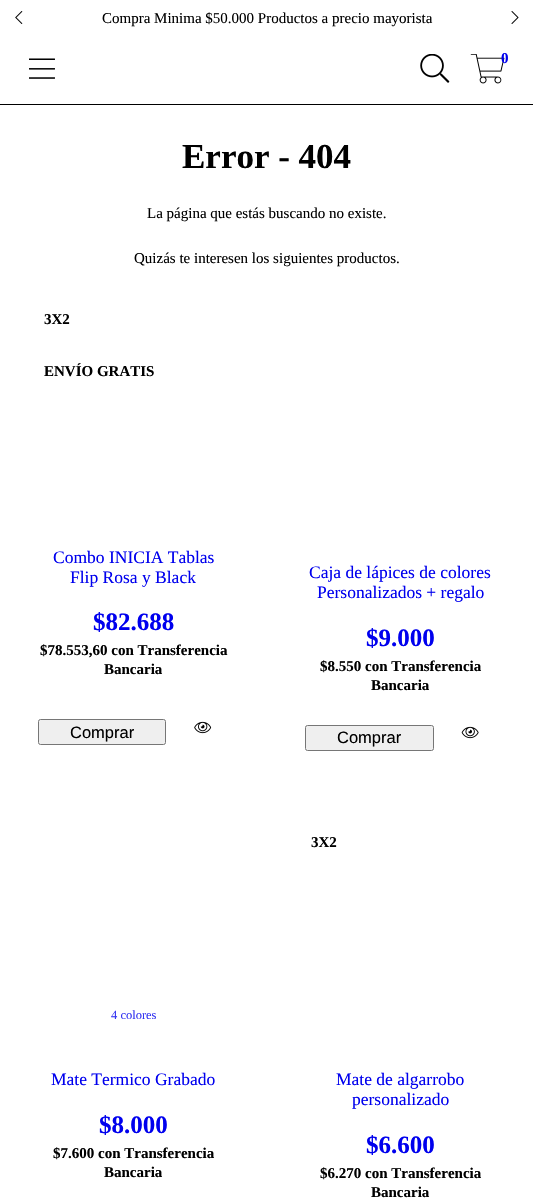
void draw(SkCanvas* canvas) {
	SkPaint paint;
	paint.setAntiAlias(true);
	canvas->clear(0xffffffff);
	canvas->drawImageRect(SkImages::DeferredFromEncodedData(SkData::MakeFromFileName("img1.png")), SkRect::MakeXYWH(15, 11, 8, 13), SkSamplingOptions());
	SkFont f1(fontMgr->matchFamilyStyle("Liberation Serif", SkFontStyle::Normal()), 15);
	f1.setSubpixel(true);
	paint.setColor(0xff000000);
	canvas->drawString("Compra Minima $50.000 Productos a precio mayorista", 102, 23, f1, paint);
	canvas->drawImageRect(SkImages::DeferredFromEncodedData(SkData::MakeFromFileName("img2.png")), SkRect::MakeXYWH(511, 11, 8, 13), SkSamplingOptions());
	canvas->drawImageRect(SkImages::DeferredFromEncodedData(SkData::MakeFromFileName("img3.png")), SkRect::MakeXYWH(29, 58, 26, 21), SkSamplingOptions());
	canvas->drawImageRect(SkImages::DeferredFromEncodedData(SkData::MakeFromFileName("img4.png")), SkRect::MakeXYWH(420, 54, 30, 29), SkSamplingOptions());
	canvas->drawImageRect(SkImages::DeferredFromEncodedData(SkData::MakeFromFileName("img5.png")), SkRect::MakeXYWH(470, 54, 35, 30), SkSamplingOptions());
	SkFont f2(fontMgr->matchFamilyStyle("Liberation Serif", SkFontStyle::Bold()), 15);
	f2.setSubpixel(true);
	paint.setColor(0xff0000ee);
	canvas->drawString("0", 501, 63, f2, paint);
	paint.setColor(0xff000000);
	canvas->drawRect(SkRect::MakeXYWH(0, 104, 533, 1), paint);
	SkFont f3(fontMgr->matchFamilyStyle("Liberation Serif", SkFontStyle::Bold()), 35);
	f3.setSubpixel(true);
	canvas->drawString("Error - 404", 182, 168, f3, paint);
	canvas->drawString("La página que estás buscando no existe.", 147, 218, f1, paint);
	canvas->drawString("Quizás te interesen los siguientes productos.", 134, 263, f1, paint);
	canvas->drawString("3X2", 44, 324, f2, paint);
	canvas->drawString("ENVÍO GRATIS", 44, 376, f2, paint);
	SkFont f4(fontMgr->matchFamilyStyle("Liberation Serif", SkFontStyle::Normal()), 17.5);
	f4.setSubpixel(true);
	paint.setColor(0xff0000ee);
	canvas->drawString("Combo INICIA Tablas", 53, 563, f4, paint);
	canvas->drawString("Flip Rosa y Black", 70, 583, f4, paint);
	SkFont f5(fontMgr->matchFamilyStyle("Liberation Serif", SkFontStyle::Bold()), 25);
	f5.setSubpixel(true);
	canvas->drawString("$82.688", 93, 630, f5, paint);
	paint.setColor(0xff000000);
	canvas->drawString("$78.553,60 con Transferencia", 40, 655, f2, paint);
	canvas->drawString("Bancaria", 104, 674, f2, paint);
	paint.setColor(0xffefefef);
	canvas->drawRoundRect(SkRect::MakeXYWH(38.5, 719.5, 127, 25), 2, 2, paint);
	paint.setStroke(true);
	paint.setStrokeWidth(1);
	paint.setColor(0xff767676);
	canvas->drawRoundRect(SkRect::MakeXYWH(38.5, 719.5, 127, 25), 2, 2, paint);
	SkFont f6(fontMgr->matchFamilyStyle("Liberation Sans", SkFontStyle::Normal()), 16.5);
	f6.setSubpixel(true);
	paint.setStroke(false);
	paint.setColor(0xff000000);
	canvas->drawString("Comprar", 70, 738, f6, paint);
	canvas->drawImageRect(SkImages::DeferredFromEncodedData(SkData::MakeFromFileName("img6.png")), SkRect::MakeXYWH(194, 721, 18, 13), SkSamplingOptions());
	paint.setColor(0xff0000ee);
	canvas->drawString("Caja de lápices de colores", 309, 578, f4, paint);
	canvas->drawString("Personalizados + regalo", 317, 598, f4, paint);
	canvas->drawString("$9.000", 366, 646, f5, paint);
	paint.setColor(0xff000000);
	canvas->drawString("$8.550 con Transferencia", 320, 671, f2, paint);
	canvas->drawString("Bancaria", 371, 690, f2, paint);
	paint.setColor(0xffefefef);
	canvas->drawRoundRect(SkRect::MakeXYWH(305.5, 725.5, 128, 25), 2, 2, paint);
	paint.setStroke(true);
	paint.setColor(0xff767676);
	canvas->drawRoundRect(SkRect::MakeXYWH(305.5, 725.5, 128, 25), 2, 2, paint);
	paint.setStroke(false);
	paint.setColor(0xff000000);
	canvas->drawString("Comprar", 337, 743, f6, paint);
	canvas->drawImageRect(SkImages::DeferredFromEncodedData(SkData::MakeFromFileName("img7.png")), SkRect::MakeXYWH(461, 726, 18, 13), SkSamplingOptions());
	SkFont f7(fontMgr->matchFamilyStyle("Liberation Serif", SkFontStyle::Normal()), 12.5);
	f7.setSubpixel(true);
	paint.setColor(0xff3333f1);
	canvas->drawString("4 colores", 111, 1019, f7, paint);
	paint.setColor(0xff0000ee);
	canvas->drawString("Mate Termico Grabado", 51, 1085, f4, paint);
	canvas->drawString("$8.000", 99, 1133, f5, paint);
	paint.setColor(0xff000000);
	canvas->drawString("$7.600 con Transferencia", 53, 1158, f2, paint);
	canvas->drawString("Bancaria", 104, 1177, f2, paint);
	canvas->drawString("3X2", 311, 847, f2, paint);
	paint.setColor(0xff0000ee);
	canvas->drawString("Mate de algarrobo", 336, 1085, f4, paint);
	canvas->drawString("personalizado", 352, 1105, f4, paint);
	canvas->drawString("$6.600", 366, 1153, f5, paint);
	paint.setColor(0xff000000);
	canvas->drawString("$6.270 con Transferencia", 320, 1178, f2, paint);
	canvas->drawString("Bancaria", 371, 1197, f2, paint);
}
